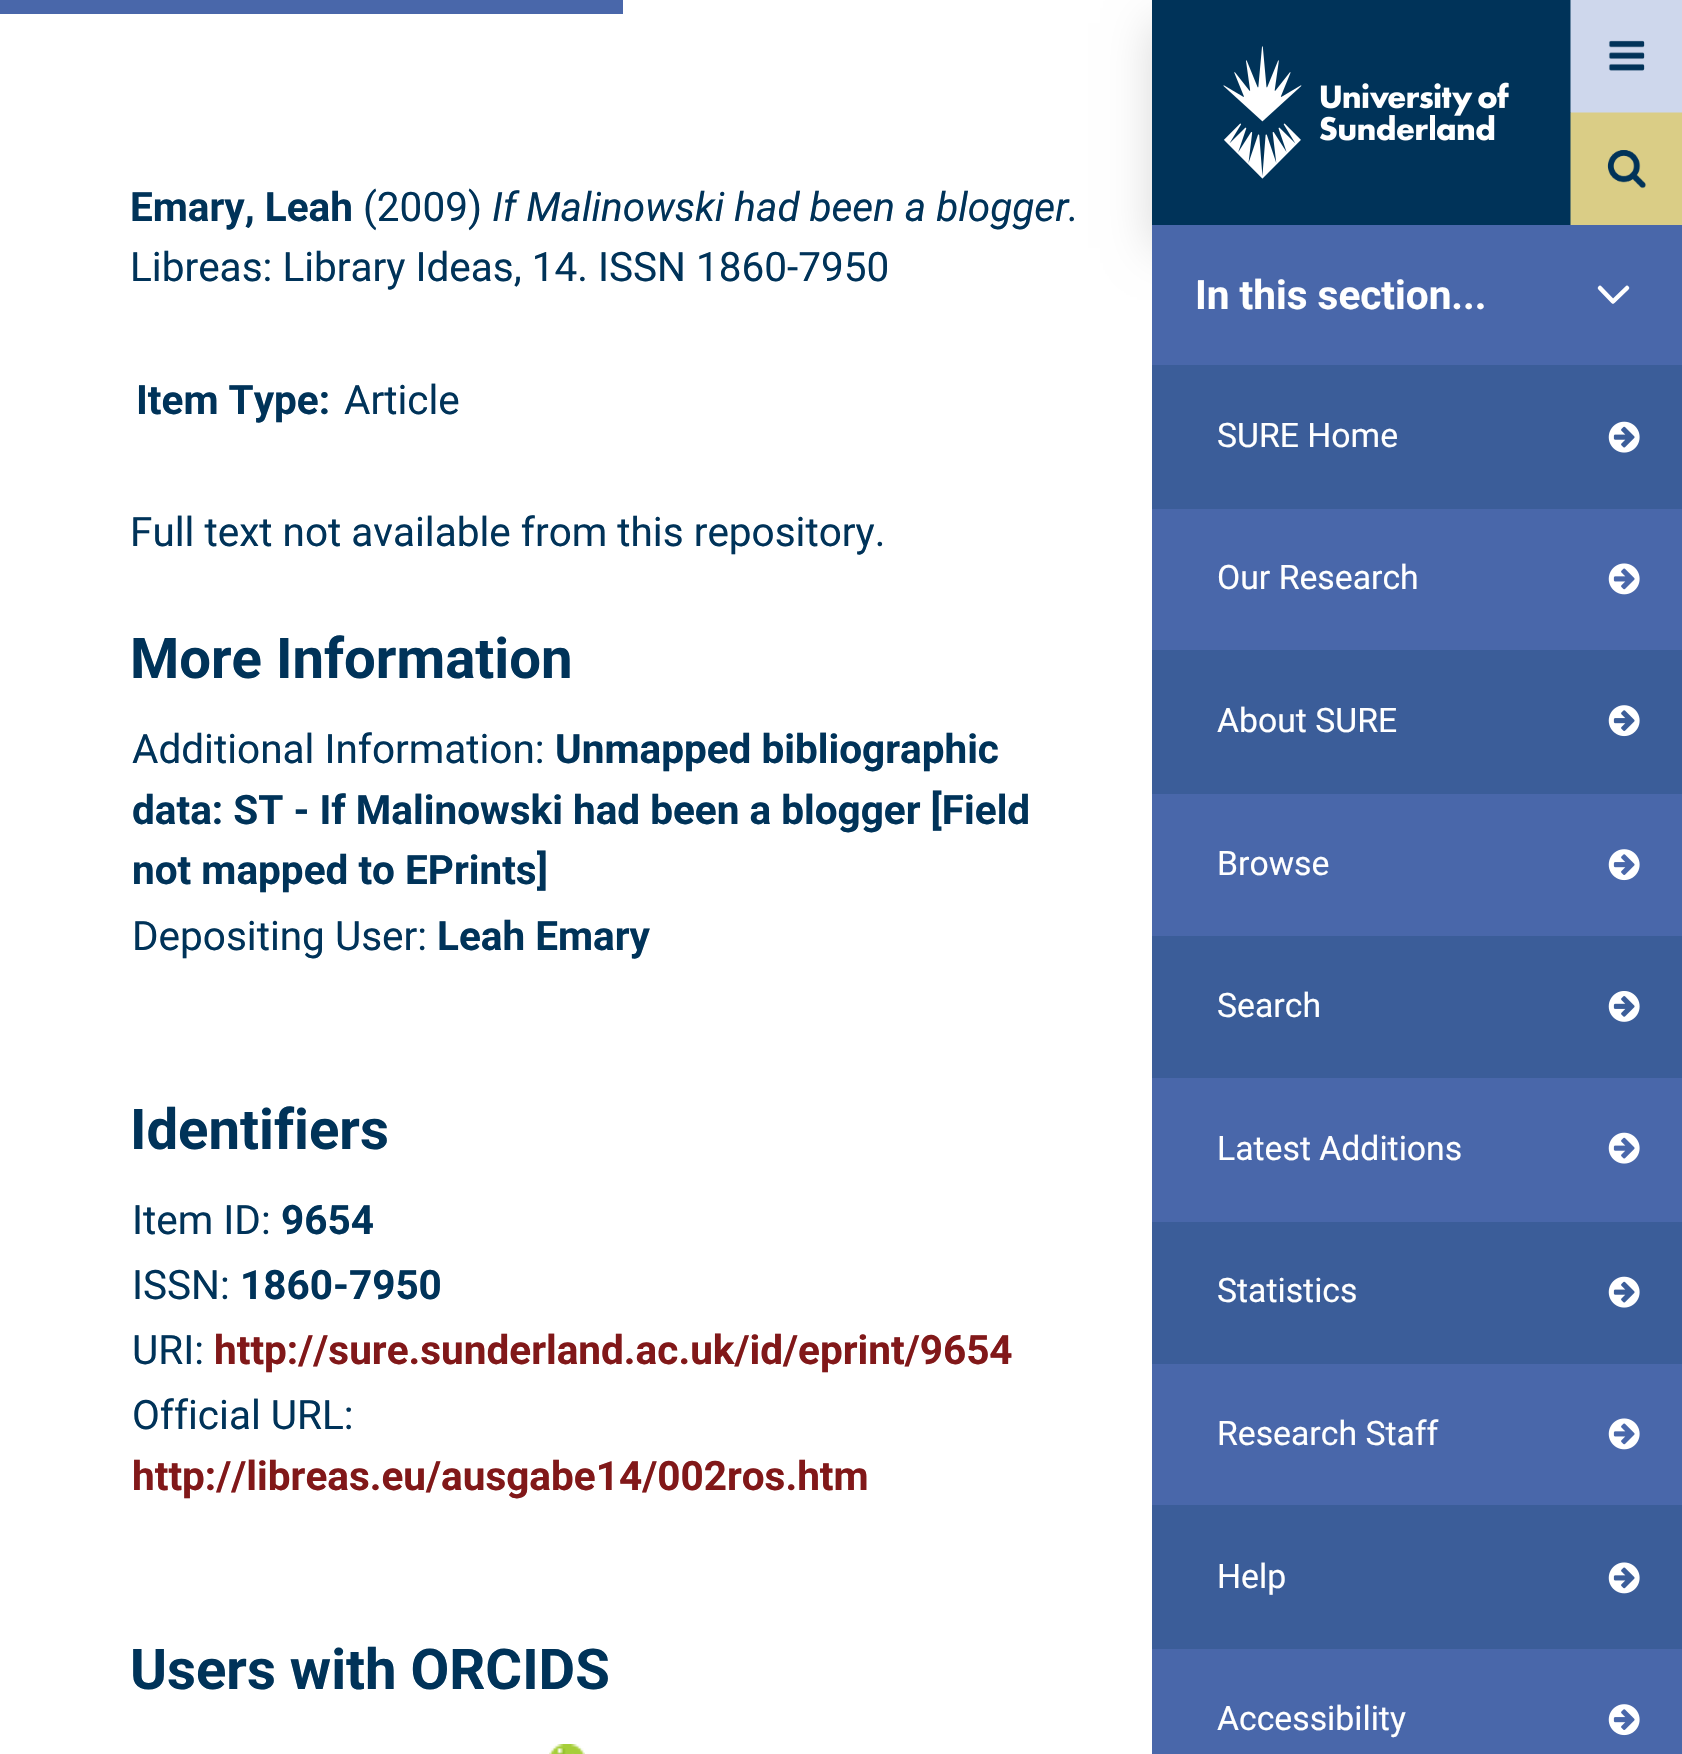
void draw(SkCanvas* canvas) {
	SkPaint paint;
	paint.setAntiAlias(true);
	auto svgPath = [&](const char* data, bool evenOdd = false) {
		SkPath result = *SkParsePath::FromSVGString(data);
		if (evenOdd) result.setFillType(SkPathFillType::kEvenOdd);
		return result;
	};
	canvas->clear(0xffffffff);
	paint.setColor(0xff4967aa);
	canvas->drawRect(SkRect::MakeXYWH(0, 0, 623, 14), paint);
	SkFont f1(fontMgr->matchFamilyStyle("Roboto", SkFontStyle::Bold()), 40.5);
	f1.setSubpixel(true);
	paint.setColor(0xff003359);
	canvas->drawString("Emary, Leah", 130, 221, f1, paint);
	SkFont f2(fontMgr->matchFamilyStyle("Roboto", SkFontStyle::Normal()), 40.5);
	f2.setSubpixel(true);
	canvas->drawString("(2009)", 363, 221, f2, paint);
	SkFont f3(fontMgr->matchFamilyStyle("Roboto", SkFontStyle::Italic()), 40.5);
	f3.setSubpixel(true);
	canvas->drawString("If Malinowski had been a blogger.", 492, 221, f3, paint);
	canvas->drawString("Libreas: Library Ideas, 14. ISSN 1860-7950", 130, 281, f2, paint);
	canvas->drawString("Item Type:", 136, 414, f1, paint);
	canvas->drawString("Article", 344, 414, f2, paint);
	canvas->drawString("Full text not available from this repository.", 130, 546, f2, paint);
	SkFont f4(fontMgr->matchFamilyStyle("Roboto", SkFontStyle::Bold()), 56.25);
	f4.setSubpixel(true);
	canvas->drawString("More Information", 130, 678, f4, paint);
	canvas->drawString("Additional Information:", 132, 763, f2, paint);
	canvas->drawString("Unmapped bibliographic", 555, 763, f1, paint);
	canvas->drawString("data: ST - If Malinowski had been a blogger [Field", 132, 824, f1, paint);
	canvas->drawString("not mapped to EPrints]", 132, 884, f1, paint);
	canvas->drawString("Depositing User:", 132, 950, f2, paint);
	canvas->drawString("Leah Emary", 437, 950, f1, paint);
	canvas->drawString("Identifiers", 130, 1149, f4, paint);
	canvas->drawString("Item ID:", 132, 1234, f2, paint);
	canvas->drawString("9654", 281, 1234, f1, paint);
	canvas->drawString("ISSN:", 132, 1299, f2, paint);
	canvas->drawString("1860-7950", 240, 1299, f1, paint);
	canvas->drawString("URI:", 132, 1364, f2, paint);
	paint.setColor(0xff811819);
	canvas->drawString("http://sure.sunderland.ac.uk/id/eprint/9654", 214, 1364, f1, paint);
	paint.setColor(0xff003359);
	canvas->drawString("Official URL:", 132, 1429, f2, paint);
	paint.setColor(0xff811819);
	canvas->drawString("http://libreas.eu/ausgabe14/002ros.htm", 132, 1490, f1, paint);
	paint.setColor(0xff003359);
	canvas->drawString("Users with ORCIDS", 130, 1689, f4, paint);
	canvas->drawImageRect(SkImages::DeferredFromEncodedData(SkData::MakeFromFileName("img1.png")), SkRect::MakeXYWH(549, 1744, 36, 10), SkSamplingOptions());
	paint.setColor(0x26000000);
	paint.setMaskFilter(SkMaskFilter::MakeBlur(kNormal_SkBlurStyle, 21.5));
	canvas->drawRect(SkRect::MakeXYWH(1152, 23, 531, 225), paint);
	paint.setMaskFilter(nullptr);
	paint.setColor(0xff003359);
	canvas->drawRect(SkRect::MakeXYWH(1152, 0, 419, 225), paint);
	canvas->drawImageRect(SkImages::DeferredFromEncodedData(SkData::MakeFromFileName("img2.png")), SkRect::MakeXYWH(1223, 46, 286, 133), SkSamplingOptions());
	paint.setColor(0xffced7ec);
	canvas->drawRect(SkRect::MakeXYWH(1571, 0, 111, 113), paint);
	canvas->drawImageRect(SkImages::DeferredFromEncodedData(SkData::MakeFromFileName("img3.png")), SkRect::MakeXYWH(1570, 0, 75, 113), SkSamplingOptions());
	canvas->drawImageRect(SkImages::DeferredFromEncodedData(SkData::MakeFromFileName("img4.png")), SkRect::MakeXYWH(1570, 112, 112, 113), SkSamplingOptions());
	paint.setColor(0xff4967aa);
	canvas->drawRect(SkRect::MakeXYWH(1152, 225, 530, 140), paint);
	paint.setColor(0xffffffff);
	canvas->drawString("In this section...", 1195, 309, f1, paint);
	paint.setStroke(true);
	paint.setStrokeWidth(4.5);
	paint.setStrokeCap(SkPaint::kRound_Cap);
	paint.setStrokeJoin(SkPaint::kRound_Join);
	canvas->drawPath(svgPath("M1600 288L1613 301.5L1627 288"), paint);
	paint.setStroke(false);
	paint.setColor(0xff3b5d99);
	canvas->drawRect(SkRect::MakeXYWH(1152, 365, 530, 144), paint);
	SkFont f5(fontMgr->matchFamilyStyle("Roboto", SkFontStyle::Normal()), 33.75);
	f5.setSubpixel(true);
	paint.setColor(0xffffffff);
	canvas->drawString("SURE Home", 1217, 447, f5, paint);
	canvas->drawImageRect(SkImages::DeferredFromEncodedData(SkData::MakeFromFileName("img5.png")), SkRect::MakeXYWH(1608, 421, 32, 32), SkSamplingOptions());
	paint.setColor(0xff4967aa);
	canvas->drawRect(SkRect::MakeXYWH(1152, 509, 530, 141), paint);
	paint.setColor(0xffffffff);
	canvas->drawString("Our Research", 1217, 589, f5, paint);
	canvas->drawImageRect(SkImages::DeferredFromEncodedData(SkData::MakeFromFileName("img6.png")), SkRect::MakeXYWH(1608, 563, 32, 32), SkSamplingOptions());
	paint.setColor(0xff3b5d99);
	canvas->drawRect(SkRect::MakeXYWH(1152, 650, 530, 144), paint);
	paint.setColor(0xffffffff);
	canvas->drawString("About SURE", 1217, 732, f5, paint);
	canvas->drawImageRect(SkImages::DeferredFromEncodedData(SkData::MakeFromFileName("img7.png")), SkRect::MakeXYWH(1608, 705, 32, 32), SkSamplingOptions());
	paint.setColor(0xff4967aa);
	canvas->drawRect(SkRect::MakeXYWH(1152, 794, 530, 142), paint);
	paint.setColor(0xffffffff);
	canvas->drawString("Browse", 1217, 875, f5, paint);
	canvas->drawImageRect(SkImages::DeferredFromEncodedData(SkData::MakeFromFileName("img8.png")), SkRect::MakeXYWH(1608, 849, 32, 32), SkSamplingOptions());
	paint.setColor(0xff3b5d99);
	canvas->drawRect(SkRect::MakeXYWH(1152, 936, 530, 142), paint);
	paint.setColor(0xffffffff);
	canvas->drawString("Search", 1217, 1017, f5, paint);
	canvas->drawImageRect(SkImages::DeferredFromEncodedData(SkData::MakeFromFileName("img9.png")), SkRect::MakeXYWH(1608, 991, 32, 31), SkSamplingOptions());
	paint.setColor(0xff4967aa);
	canvas->drawRect(SkRect::MakeXYWH(1152, 1078, 530, 144), paint);
	paint.setColor(0xffffffff);
	canvas->drawString("Latest Additions", 1217, 1160, f5, paint);
	canvas->drawImageRect(SkImages::DeferredFromEncodedData(SkData::MakeFromFileName("img10.png")), SkRect::MakeXYWH(1608, 1132, 32, 32), SkSamplingOptions());
	paint.setColor(0xff3b5d99);
	canvas->drawRect(SkRect::MakeXYWH(1152, 1222, 530, 142), paint);
	paint.setColor(0xffffffff);
	canvas->drawString("Statistics", 1217, 1302, f5, paint);
	canvas->drawImageRect(SkImages::DeferredFromEncodedData(SkData::MakeFromFileName("img5.png")), SkRect::MakeXYWH(1608, 1276, 32, 32), SkSamplingOptions());
	paint.setColor(0xff4967aa);
	canvas->drawRect(SkRect::MakeXYWH(1152, 1364, 530, 141), paint);
	paint.setColor(0xffffffff);
	canvas->drawString("Research Staff", 1217, 1445, f5, paint);
	canvas->drawImageRect(SkImages::DeferredFromEncodedData(SkData::MakeFromFileName("img6.png")), SkRect::MakeXYWH(1608, 1418, 32, 32), SkSamplingOptions());
	paint.setColor(0xff3b5d99);
	canvas->drawRect(SkRect::MakeXYWH(1152, 1505, 530, 144), paint);
	paint.setColor(0xffffffff);
	canvas->drawString("Help", 1217, 1588, f5, paint);
	canvas->drawImageRect(SkImages::DeferredFromEncodedData(SkData::MakeFromFileName("img11.png")), SkRect::MakeXYWH(1608, 1562, 32, 32), SkSamplingOptions());
	paint.setColor(0xff4967aa);
	canvas->drawRect(SkRect::MakeXYWH(1152, 1649, 530, 105), paint);
	paint.setColor(0xffffffff);
	canvas->drawString("Accessibility", 1217, 1730, f5, paint);
	canvas->drawImageRect(SkImages::DeferredFromEncodedData(SkData::MakeFromFileName("img8.png")), SkRect::MakeXYWH(1608, 1704, 32, 32), SkSamplingOptions());
}
